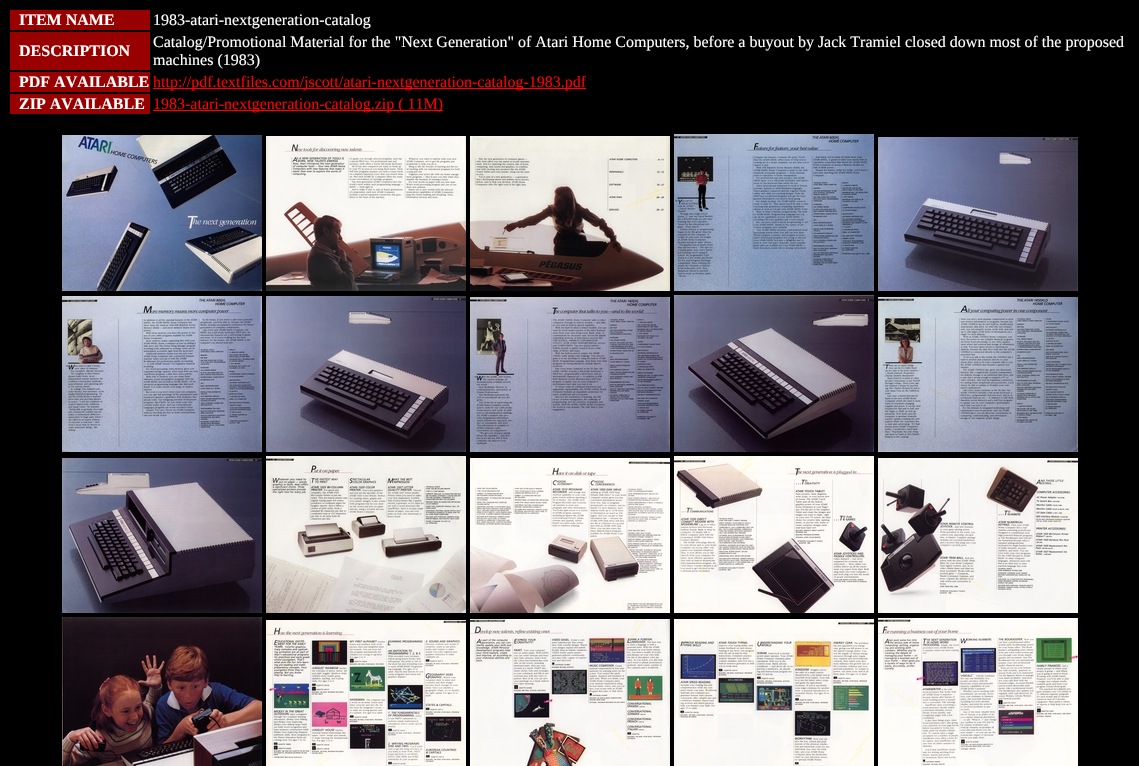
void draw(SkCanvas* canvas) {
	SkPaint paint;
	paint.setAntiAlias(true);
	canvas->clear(0xff000000);
	paint.setColor(0xff990000);
	canvas->drawRect(SkRect::MakeXYWH(10, 10, 140, 20), paint);
	SkFont f1(fontMgr->matchFamilyStyle("Liberation Serif", SkFontStyle::Bold()), 16);
	f1.setSubpixel(true);
	paint.setColor(0xffffffff);
	canvas->drawString("ITEM NAME", 19, 25, f1, paint);
	SkFont f2(fontMgr->matchFamilyStyle("Liberation Serif", SkFontStyle::Normal()), 16);
	f2.setSubpixel(true);
	canvas->drawString("1983-atari-nextgeneration-catalog", 153, 25, f2, paint);
	paint.setColor(0xff990000);
	canvas->drawRect(SkRect::MakeXYWH(10, 32, 140, 38), paint);
	paint.setColor(0xffffffff);
	canvas->drawString("DESCRIPTION", 19, 56, f1, paint);
	canvas->drawString("Catalog/Promotional Material for the \"Next Generation\" of Atari Home Computers, before a buyout by Jack Tramiel closed down most of the proposed", 153, 47, f2, paint);
	canvas->drawString("machines (1983)", 153, 65, f2, paint);
	paint.setColor(0xff990000);
	canvas->drawRect(SkRect::MakeXYWH(10, 72, 140, 20), paint);
	paint.setColor(0xffffffff);
	canvas->drawString("PDF AVAILABLE", 19, 87, f1, paint);
	paint.setColor(0xffff0000);
	canvas->drawRect(SkRect::MakeXYWH(153, 88, 433, 1), paint);
	canvas->drawString("http://pdf.textfiles.com/jscott/atari-nextgeneration-catalog-1983.pdf", 153, 87, f2, paint);
	paint.setColor(0xff990000);
	canvas->drawRect(SkRect::MakeXYWH(10, 94, 140, 20), paint);
	paint.setColor(0xffffffff);
	canvas->drawString("ZIP AVAILABLE", 19, 109, f1, paint);
	paint.setColor(0xffff0000);
	canvas->drawRect(SkRect::MakeXYWH(153, 110, 290, 1), paint);
	canvas->drawString("1983-atari-nextgeneration-catalog.zip ( 11M)", 153, 109, f2, paint);
	canvas->drawImageRect(SkImages::DeferredFromEncodedData(SkData::MakeFromFileName("img1.png")), SkRect::MakeXYWH(62, 135, 200, 156), SkSamplingOptions());
	canvas->drawImageRect(SkImages::DeferredFromEncodedData(SkData::MakeFromFileName("img2.png")), SkRect::MakeXYWH(266, 136, 200, 155), SkSamplingOptions());
	canvas->drawImageRect(SkImages::DeferredFromEncodedData(SkData::MakeFromFileName("img3.png")), SkRect::MakeXYWH(470, 136, 200, 155), SkSamplingOptions());
	canvas->drawImageRect(SkImages::DeferredFromEncodedData(SkData::MakeFromFileName("img4.png")), SkRect::MakeXYWH(674, 134, 200, 157), SkSamplingOptions());
	canvas->drawImageRect(SkImages::DeferredFromEncodedData(SkData::MakeFromFileName("img5.png")), SkRect::MakeXYWH(878, 137, 200, 154), SkSamplingOptions());
	canvas->drawImageRect(SkImages::DeferredFromEncodedData(SkData::MakeFromFileName("img6.png")), SkRect::MakeXYWH(62, 296, 200, 156), SkSamplingOptions());
	canvas->drawImageRect(SkImages::DeferredFromEncodedData(SkData::MakeFromFileName("img7.png")), SkRect::MakeXYWH(266, 296, 200, 156), SkSamplingOptions());
	canvas->drawImageRect(SkImages::DeferredFromEncodedData(SkData::MakeFromFileName("img8.png")), SkRect::MakeXYWH(470, 297, 200, 155), SkSamplingOptions());
	canvas->drawImageRect(SkImages::DeferredFromEncodedData(SkData::MakeFromFileName("img9.png")), SkRect::MakeXYWH(674, 295, 200, 157), SkSamplingOptions());
	canvas->drawImageRect(SkImages::DeferredFromEncodedData(SkData::MakeFromFileName("img10.png")), SkRect::MakeXYWH(878, 297, 200, 155), SkSamplingOptions());
	canvas->drawImageRect(SkImages::DeferredFromEncodedData(SkData::MakeFromFileName("img11.png")), SkRect::MakeXYWH(62, 458, 200, 155), SkSamplingOptions());
	canvas->drawImageRect(SkImages::DeferredFromEncodedData(SkData::MakeFromFileName("img12.png")), SkRect::MakeXYWH(266, 456, 200, 157), SkSamplingOptions());
	canvas->drawImageRect(SkImages::DeferredFromEncodedData(SkData::MakeFromFileName("img13.png")), SkRect::MakeXYWH(470, 458, 200, 155), SkSamplingOptions());
	canvas->drawImageRect(SkImages::DeferredFromEncodedData(SkData::MakeFromFileName("img14.png")), SkRect::MakeXYWH(674, 456, 200, 157), SkSamplingOptions());
	canvas->drawImageRect(SkImages::DeferredFromEncodedData(SkData::MakeFromFileName("img15.png")), SkRect::MakeXYWH(878, 458, 200, 155), SkSamplingOptions());
	canvas->drawImageRect(SkImages::DeferredFromEncodedData(SkData::MakeFromFileName("img16.png")), SkRect::MakeXYWH(62, 617, 200, 149), SkSamplingOptions());
	canvas->drawImageRect(SkImages::DeferredFromEncodedData(SkData::MakeFromFileName("img17.png")), SkRect::MakeXYWH(266, 620, 200, 146), SkSamplingOptions());
	canvas->drawImageRect(SkImages::DeferredFromEncodedData(SkData::MakeFromFileName("img18.png")), SkRect::MakeXYWH(470, 619, 200, 147), SkSamplingOptions());
	canvas->drawImageRect(SkImages::DeferredFromEncodedData(SkData::MakeFromFileName("img19.png")), SkRect::MakeXYWH(674, 619, 200, 147), SkSamplingOptions());
	canvas->drawImageRect(SkImages::DeferredFromEncodedData(SkData::MakeFromFileName("img20.png")), SkRect::MakeXYWH(878, 618, 200, 148), SkSamplingOptions());
}
